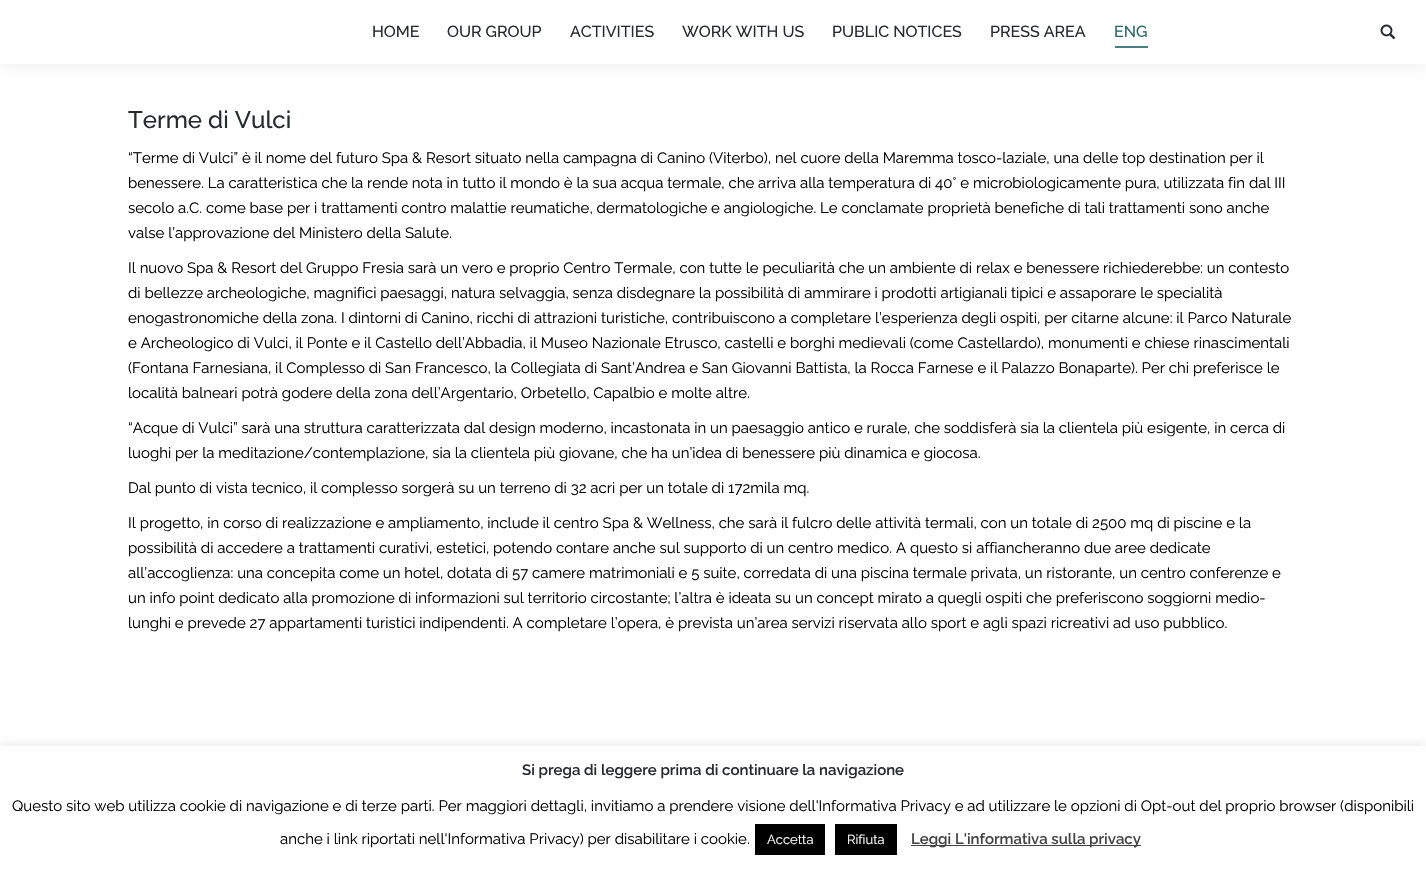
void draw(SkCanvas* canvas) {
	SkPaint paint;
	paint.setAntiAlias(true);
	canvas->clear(0xffffffff);
	paint.setColor(0x12000000);
	paint.setMaskFilter(SkMaskFilter::MakeBlur(kNormal_SkBlurStyle, 7.5));
	canvas->drawRect(SkRect::MakeXYWH(-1, -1, 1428, 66), paint);
	paint.setMaskFilter(nullptr);
	paint.setColor(0xffffffff);
	canvas->drawRect(SkRect::MakeXYWH(0, 0, 1426, 64), paint);
	SkFont f1(fontMgr->matchFamilyStyle("Raleway", SkFontStyle(500, SkFontStyle::kNormal_Width, SkFontStyle::kUpright_Slant)), 16);
	f1.setSubpixel(true);
	paint.setColor(0xff262b2e);
	canvas->drawString("HOME", 372, 37, f1, paint);
	canvas->drawString("OUR GROUP", 447, 37, f1, paint);
	canvas->drawString("ACTIVITIES", 570, 37, f1, paint);
	canvas->drawString("WORK WITH US", 682, 37, f1, paint);
	canvas->drawString("PUBLIC NOTICES", 832, 37, f1, paint);
	canvas->drawString("PRESS AREA", 990, 37, f1, paint);
	paint.setColor(0xff296969);
	canvas->drawString("ENG", 1114, 37, f1, paint);
	paint.setColor(0xff498080);
	canvas->drawRect(SkRect::MakeXYWH(1115, 46, 33, 2), paint);
	canvas->drawImageRect(SkImages::DeferredFromEncodedData(SkData::MakeFromFileName("img1.png")), SkRect::MakeXYWH(1380, 24, 16, 16), SkSamplingOptions());
	SkFont f2(fontMgr->matchFamilyStyle("Raleway", SkFontStyle(500, SkFontStyle::kNormal_Width, SkFontStyle::kUpright_Slant)), 24);
	f2.setSubpixel(true);
	paint.setColor(0xff262b2e);
	canvas->drawString("Terme di Vulci", 128, 128, f2, paint);
	SkFont f3(fontMgr->matchFamilyStyle("Raleway", SkFontStyle::Normal()), 15);
	f3.setSubpixel(true);
	paint.setColor(0xff000000);
	canvas->drawString("“Terme di Vulci” è il nome del futuro Spa & Resort situato nella campagna di Canino (Viterbo), nel cuore della Maremma tosco-laziale, una delle top destination per il", 128, 163, f3, paint);
	canvas->drawString("benessere. La caratteristica che la rende nota in tutto il mondo è la sua acqua termale, che arriva alla temperatura di 40° e microbiologicamente pura, utilizzata fin dal III", 128, 188, f3, paint);
	canvas->drawString("secolo a.C. come base per i trattamenti contro malattie reumatiche, dermatologiche e angiologiche. Le conclamate proprietà benefiche di tali trattamenti sono anche", 128, 213, f3, paint);
	canvas->drawString("valse l’approvazione del Ministero della Salute.", 128, 238, f3, paint);
	canvas->drawString("Il nuovo Spa & Resort del Gruppo Fresia sarà un vero e proprio Centro Termale, con tutte le peculiarità che un ambiente di relax e benessere richiederebbe: un contesto", 128, 273, f3, paint);
	canvas->drawString("di bellezze archeologiche, magnifici paesaggi, natura selvaggia, senza disdegnare la possibilità di ammirare i prodotti artigianali tipici e assaporare le specialità", 128, 298, f3, paint);
	canvas->drawString("enogastronomiche della zona. I dintorni di Canino, ricchi di attrazioni turistiche, contribuiscono a completare l’esperienza degli ospiti, per citarne alcune: il Parco Naturale", 128, 323, f3, paint);
	canvas->drawString("e Archeologico di Vulci, il Ponte e il Castello dell’Abbadia, il Museo Nazionale Etrusco, castelli e borghi medievali (come Castellardo), monumenti e chiese rinascimentali", 128, 348, f3, paint);
	canvas->drawString("(Fontana Farnesiana, il Complesso di San Francesco, la Collegiata di Sant’Andrea e San Giovanni Battista, la Rocca Farnese e il Palazzo Bonaparte). Per chi preferisce le", 128, 373, f3, paint);
	canvas->drawString("località balneari potrà godere della zona dell’Argentario, Orbetello, Capalbio e molte altre.", 128, 398, f3, paint);
	canvas->drawString("“Acque di Vulci” sarà una struttura caratterizzata dal design moderno, incastonata in un paesaggio antico e rurale, che soddisferà sia la clientela più esigente, in cerca di", 128, 433, f3, paint);
	canvas->drawString("luoghi per la meditazione/contemplazione, sia la clientela più giovane, che ha un’idea di benessere più dinamica e giocosa.", 128, 458, f3, paint);
	canvas->drawString("Dal punto di vista tecnico, il complesso sorgerà su un terreno di 32 acri per un totale di 172mila mq.", 128, 493, f3, paint);
	canvas->drawString("Il progetto, in corso di realizzazione e ampliamento, include il centro Spa & Wellness, che sarà il fulcro delle attività termali, con un totale di 2500 mq di piscine e la", 128, 528, f3, paint);
	canvas->drawString("possibilità di accedere a trattamenti curativi, estetici, potendo contare anche sul supporto di un centro medico. A questo si affiancheranno due aree dedicate", 128, 553, f3, paint);
	canvas->drawString("all’accoglienza: una concepita come un hotel, dotata di 57 camere matrimoniali e 5 suite, corredata di una piscina termale privata, un ristorante, un centro conferenze e", 128, 578, f3, paint);
	canvas->drawString("un info point dedicato alla promozione di informazioni sul territorio circostante; l’altra è ideata su un concept mirato a quegli ospiti che preferiscono soggiorni medio-", 128, 603, f3, paint);
	canvas->drawString("lunghi e prevede 27 appartamenti turistici indipendenti. A completare l’opera, è prevista un’area servizi riservata allo sport e agli spazi ricreativi ad uso pubblico.", 128, 628, f3, paint);
	paint.setColor(0x4dacabab);
	paint.setMaskFilter(SkMaskFilter::MakeBlur(kNormal_SkBlurStyle, 5));
	canvas->drawRect(SkRect::MakeXYWH(0, 745, 1426, 126), paint);
	paint.setMaskFilter(nullptr);
	paint.setColor(0xffffffff);
	canvas->drawRect(SkRect::MakeXYWH(0, 746, 1426, 126), paint);
	SkFont f4(fontMgr->matchFamilyStyle("Raleway", SkFontStyle(600, SkFontStyle::kNormal_Width, SkFontStyle::kUpright_Slant)), 15);
	f4.setSubpixel(true);
	paint.setColor(0xff262b2e);
	canvas->drawString("Si prega di leggere prima di continuare la navigazione", 522, 775, f4, paint);
	paint.setColor(0xff000000);
	canvas->drawString("Questo sito web utilizza cookie di navigazione e di terze parti. Per maggiori dettagli, invitiamo a prendere visione dell'Informativa Privacy e ad utilizzare le opzioni di Opt-out del proprio browser (disponibili", 12, 811, f3, paint);
	canvas->drawString("anche i link riportati nell'Informativa Privacy) per disabilitare i cookie.", 280, 844, f3, paint);
	canvas->drawRect(SkRect::MakeXYWH(755, 824, 70, 31), paint);
	SkFont f5(fontMgr->matchFamilyStyle("Raleway", SkFontStyle::Normal()), 13);
	f5.setSubpixel(true);
	paint.setColor(0xffffffff);
	canvas->drawString("Accetta", 767, 844, f5, paint);
	paint.setColor(0xff000000);
	canvas->drawRect(SkRect::MakeXYWH(835, 824, 62, 31), paint);
	paint.setColor(0xffffffff);
	canvas->drawString("Rifiuta", 847, 844, f5, paint);
	paint.setColor(0xff444444);
	canvas->drawRect(SkRect::MakeXYWH(911, 845, 230, 1), paint);
	canvas->drawString("Leggi L'informativa sulla privacy", 911, 844, f4, paint);
}
